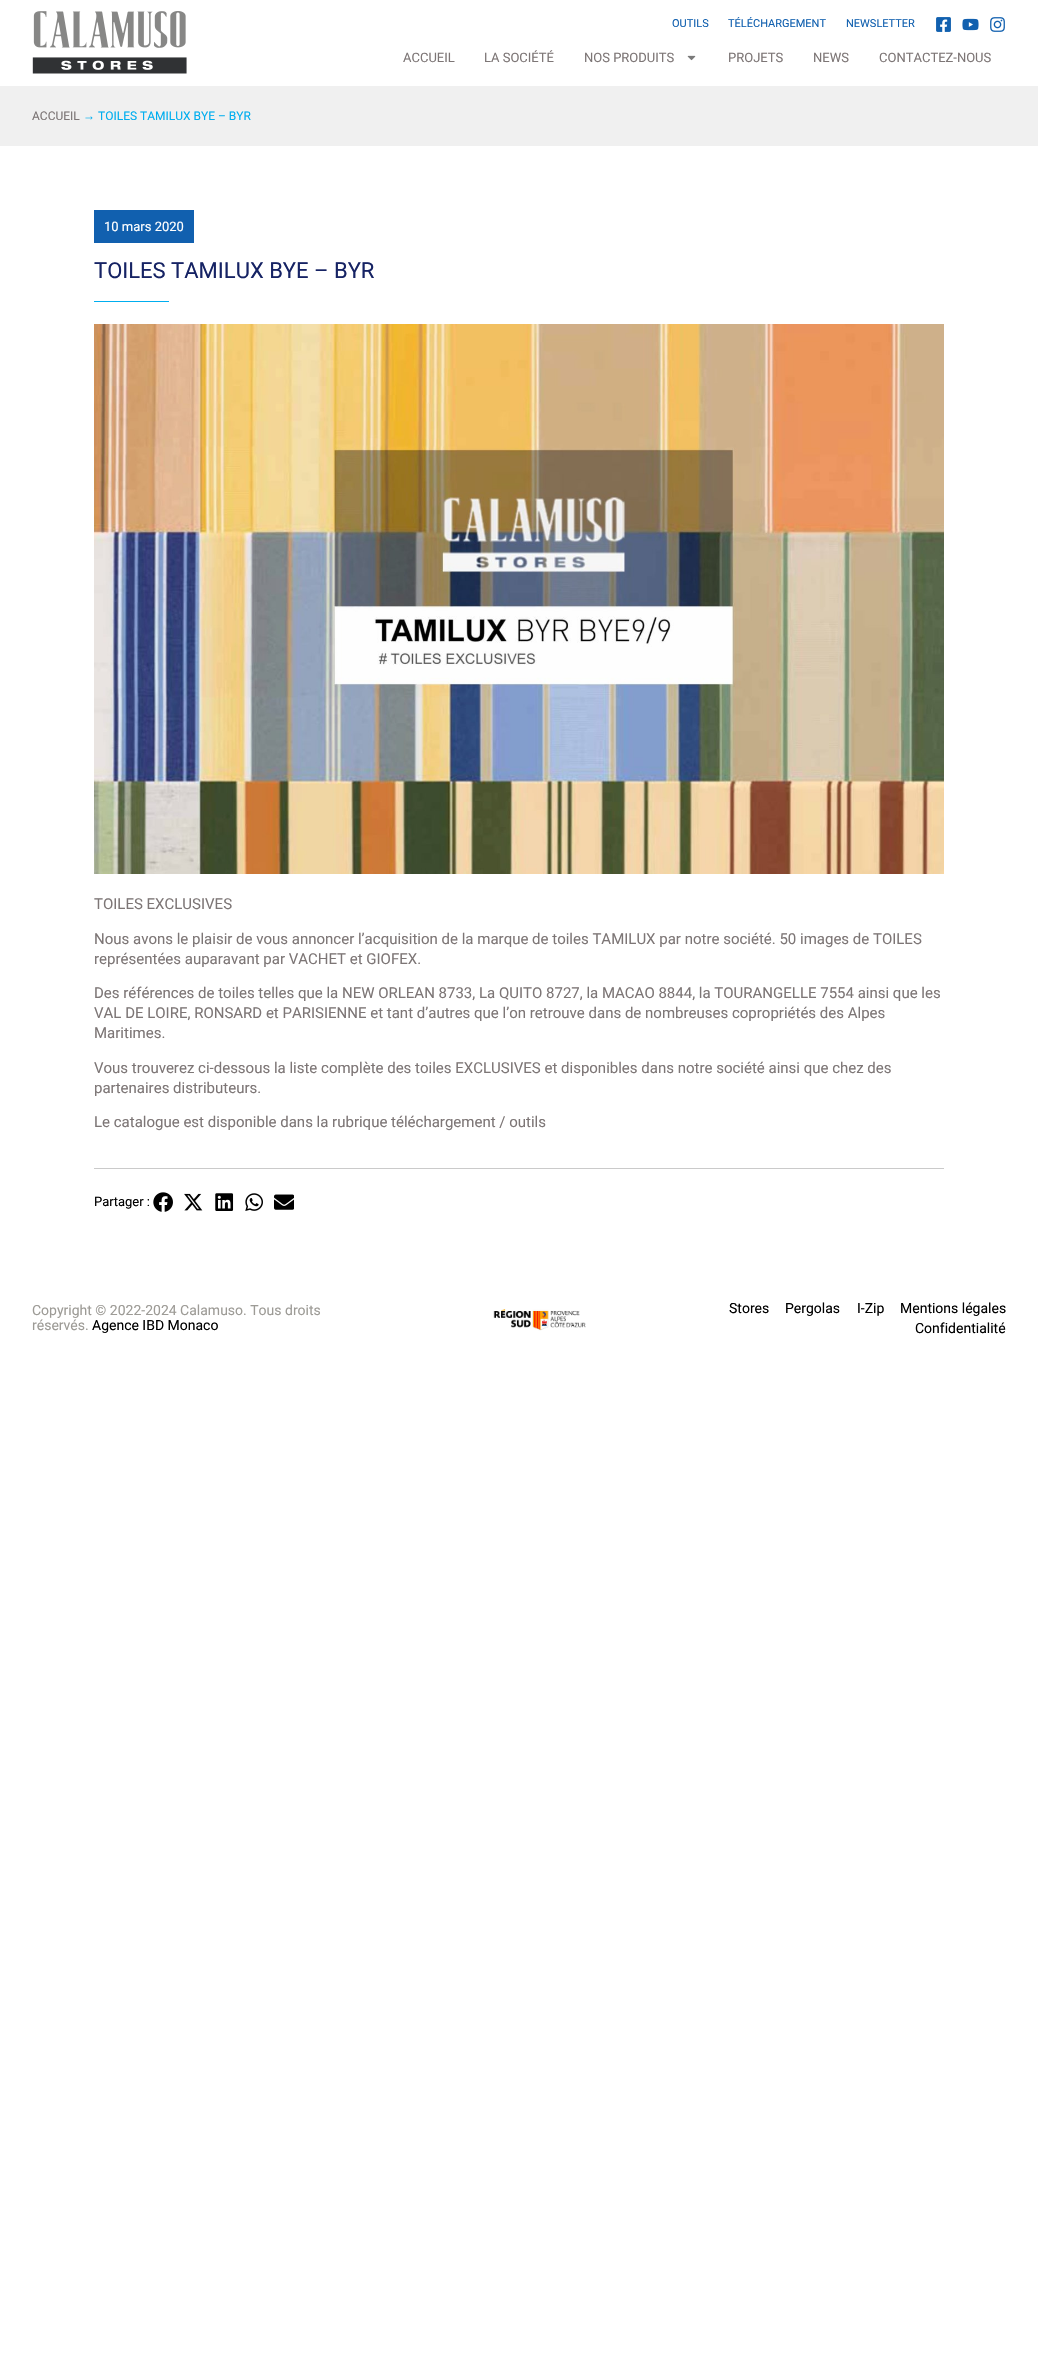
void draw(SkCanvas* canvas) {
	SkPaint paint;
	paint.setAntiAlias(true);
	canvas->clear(0xffffffff);
	canvas->drawImageRect(SkImages::DeferredFromEncodedData(SkData::MakeFromFileName("img1.png")), SkRect::MakeXYWH(32, 11, 155, 63), SkSamplingOptions());
	SkFont f1(fontMgr->matchFamilyStyle("Roboto", SkFontStyle::Normal()), 11);
	f1.setSubpixel(true);
	paint.setColor(0xff1160af);
	canvas->drawString("OUTILS", 672, 27, f1, paint);
	canvas->drawString("TÉLÉCHARGEMENT", 728, 27, f1, paint);
	canvas->drawString("NEWSLETTER", 846, 27, f1, paint);
	canvas->drawImageRect(SkImages::DeferredFromEncodedData(SkData::MakeFromFileName("img2.png")), SkRect::MakeXYWH(936, 17, 15, 15), SkSamplingOptions());
	canvas->drawImageRect(SkImages::DeferredFromEncodedData(SkData::MakeFromFileName("img3.png")), SkRect::MakeXYWH(962, 18, 17, 13), SkSamplingOptions());
	canvas->drawImageRect(SkImages::DeferredFromEncodedData(SkData::MakeFromFileName("img4.png")), SkRect::MakeXYWH(990, 17, 15, 15), SkSamplingOptions());
	SkFont f2(fontMgr->matchFamilyStyle("Roboto", SkFontStyle::Normal()), 13);
	f2.setSubpixel(true);
	paint.setColor(0xff7d7676);
	canvas->drawString("ACCUEIL", 403, 62, f2, paint);
	canvas->drawString("LA SOCIÉTÉ", 484, 62, f2, paint);
	canvas->drawString("NOS PRODUITS", 584, 62, f2, paint);
	canvas->drawImageRect(SkImages::DeferredFromEncodedData(SkData::MakeFromFileName("img5.png")), SkRect::MakeXYWH(687, 55, 9, 6), SkSamplingOptions());
	canvas->drawString("PROJETS", 728, 62, f2, paint);
	canvas->drawString("NEWS", 813, 62, f2, paint);
	canvas->drawString("CONTACTEZ-NOUS", 879, 62, f2, paint);
	paint.setColor(0xfff0f0f0);
	canvas->drawRect(SkRect::MakeXYWH(0, 86, 1038, 60), paint);
	SkFont f3(fontMgr->matchFamilyStyle("Roboto", SkFontStyle::Normal()), 12);
	f3.setSubpixel(true);
	paint.setColor(0xff7d7676);
	canvas->drawString("ACCUEIL", 32, 120, f3, paint);
	SkFont f4(fontMgr->matchFamilyStyle("Liberation Sans", SkFontStyle::Normal()), 12);
	f4.setSubpixel(true);
	paint.setColor(0xff00aeef);
	canvas->drawString("→", 83, 120, f4, paint);
	canvas->drawString("TOILES TAMILUX BYE – BYR", 98, 120, f3, paint);
	paint.setColor(0xff1160af);
	canvas->drawRect(SkRect::MakeXYWH(94, 210, 100, 33), paint);
	paint.setColor(0xffffffff);
	canvas->drawString("10 mars 2020", 104, 231, f2, paint);
	SkFont f5(fontMgr->matchFamilyStyle("Roboto", SkFontStyle::Normal()), 22);
	f5.setSubpixel(true);
	paint.setColor(0xff162364);
	canvas->drawString("TOILES TAMILUX BYE – BYR", 94, 278, f5, paint);
	paint.setColor(0xff00aeef);
	canvas->drawRect(SkRect::MakeXYWH(94, 301, 75, 1), paint);
	canvas->drawImageRect(SkImages::DeferredFromEncodedData(SkData::MakeFromFileName("img6.png")), SkRect::MakeXYWH(94, 324, 850, 550), SkSamplingOptions());
	SkFont f6(fontMgr->matchFamilyStyle("Roboto", SkFontStyle::Normal()), 15);
	f6.setSubpixel(true);
	paint.setColor(0xff7d7676);
	canvas->drawString("TOILES EXCLUSIVES", 94, 909, f6, paint);
	canvas->drawString("Nous avons le plaisir de vous annoncer l’acquisition de la marque de toiles TAMILUX par notre société. 50 images de TOILES", 94, 944, f6, paint);
	canvas->drawString("représentées auparavant par VACHET et GIOFEX.", 94, 964, f6, paint);
	canvas->drawString("Des références de toiles telles que la NEW ORLEAN 8733, La QUITO 8727, la MACAO 8844, la TOURANGELLE 7554 ainsi que les", 94, 998, f6, paint);
	canvas->drawString("VAL DE LOIRE, RONSARD et PARISIENNE et tant d’autres que l’on retrouve dans de nombreuses copropriétés des Alpes", 94, 1018, f6, paint);
	canvas->drawString("Maritimes.", 94, 1038, f6, paint);
	canvas->drawString("Vous trouverez ci-dessous la liste complète des toiles EXCLUSIVES et disponibles dans notre société ainsi que chez des", 94, 1073, f6, paint);
	canvas->drawString("partenaires distributeurs.", 94, 1093, f6, paint);
	canvas->drawString("Le catalogue est disponible dans la rubrique téléchargement / outils", 94, 1127, f6, paint);
	paint.setColor(0xffcacaca);
	canvas->drawRect(SkRect::MakeXYWH(94, 1168, 850, 1), paint);
	paint.setColor(0xff000000);
	canvas->drawString("Partager :", 94, 1206, f2, paint);
	canvas->drawImageRect(SkImages::DeferredFromEncodedData(SkData::MakeFromFileName("img7.png")), SkRect::MakeXYWH(153, 1192, 20, 20), SkSamplingOptions());
	canvas->drawImageRect(SkImages::DeferredFromEncodedData(SkData::MakeFromFileName("img8.png")), SkRect::MakeXYWH(184, 1193, 19, 18), SkSamplingOptions());
	canvas->drawImageRect(SkImages::DeferredFromEncodedData(SkData::MakeFromFileName("img9.png")), SkRect::MakeXYWH(215, 1193, 19, 18), SkSamplingOptions());
	canvas->drawImageRect(SkImages::DeferredFromEncodedData(SkData::MakeFromFileName("img10.png")), SkRect::MakeXYWH(245, 1193, 18, 18), SkSamplingOptions());
	canvas->drawImageRect(SkImages::DeferredFromEncodedData(SkData::MakeFromFileName("img11.png")), SkRect::MakeXYWH(274, 1194, 20, 16), SkSamplingOptions());
	SkFont f7(fontMgr->matchFamilyStyle("Roboto", SkFontStyle::Normal()), 14);
	f7.setSubpixel(true);
	paint.setColor(0xff9d9b96);
	canvas->drawString("Copyright © 2022-2024 Calamuso. Tous droits", 32, 1315, f7, paint);
	canvas->drawString("réservés.", 32, 1330, f7, paint);
	paint.setColor(0xff000000);
	canvas->drawString("Agence IBD Monaco", 92, 1330, f7, paint);
	canvas->drawImageRect(SkImages::DeferredFromEncodedData(SkData::MakeFromFileName("img12.png")), SkRect::MakeXYWH(493, 1309, 93, 22), SkSamplingOptions());
	canvas->drawString("Stores", 729, 1313, f7, paint);
	canvas->drawString("Pergolas", 785, 1313, f7, paint);
	canvas->drawString("I-Zip", 857, 1313, f7, paint);
	canvas->drawString("Mentions légales", 900, 1313, f7, paint);
	canvas->drawString("Confidentialité", 915, 1333, f7, paint);
}
